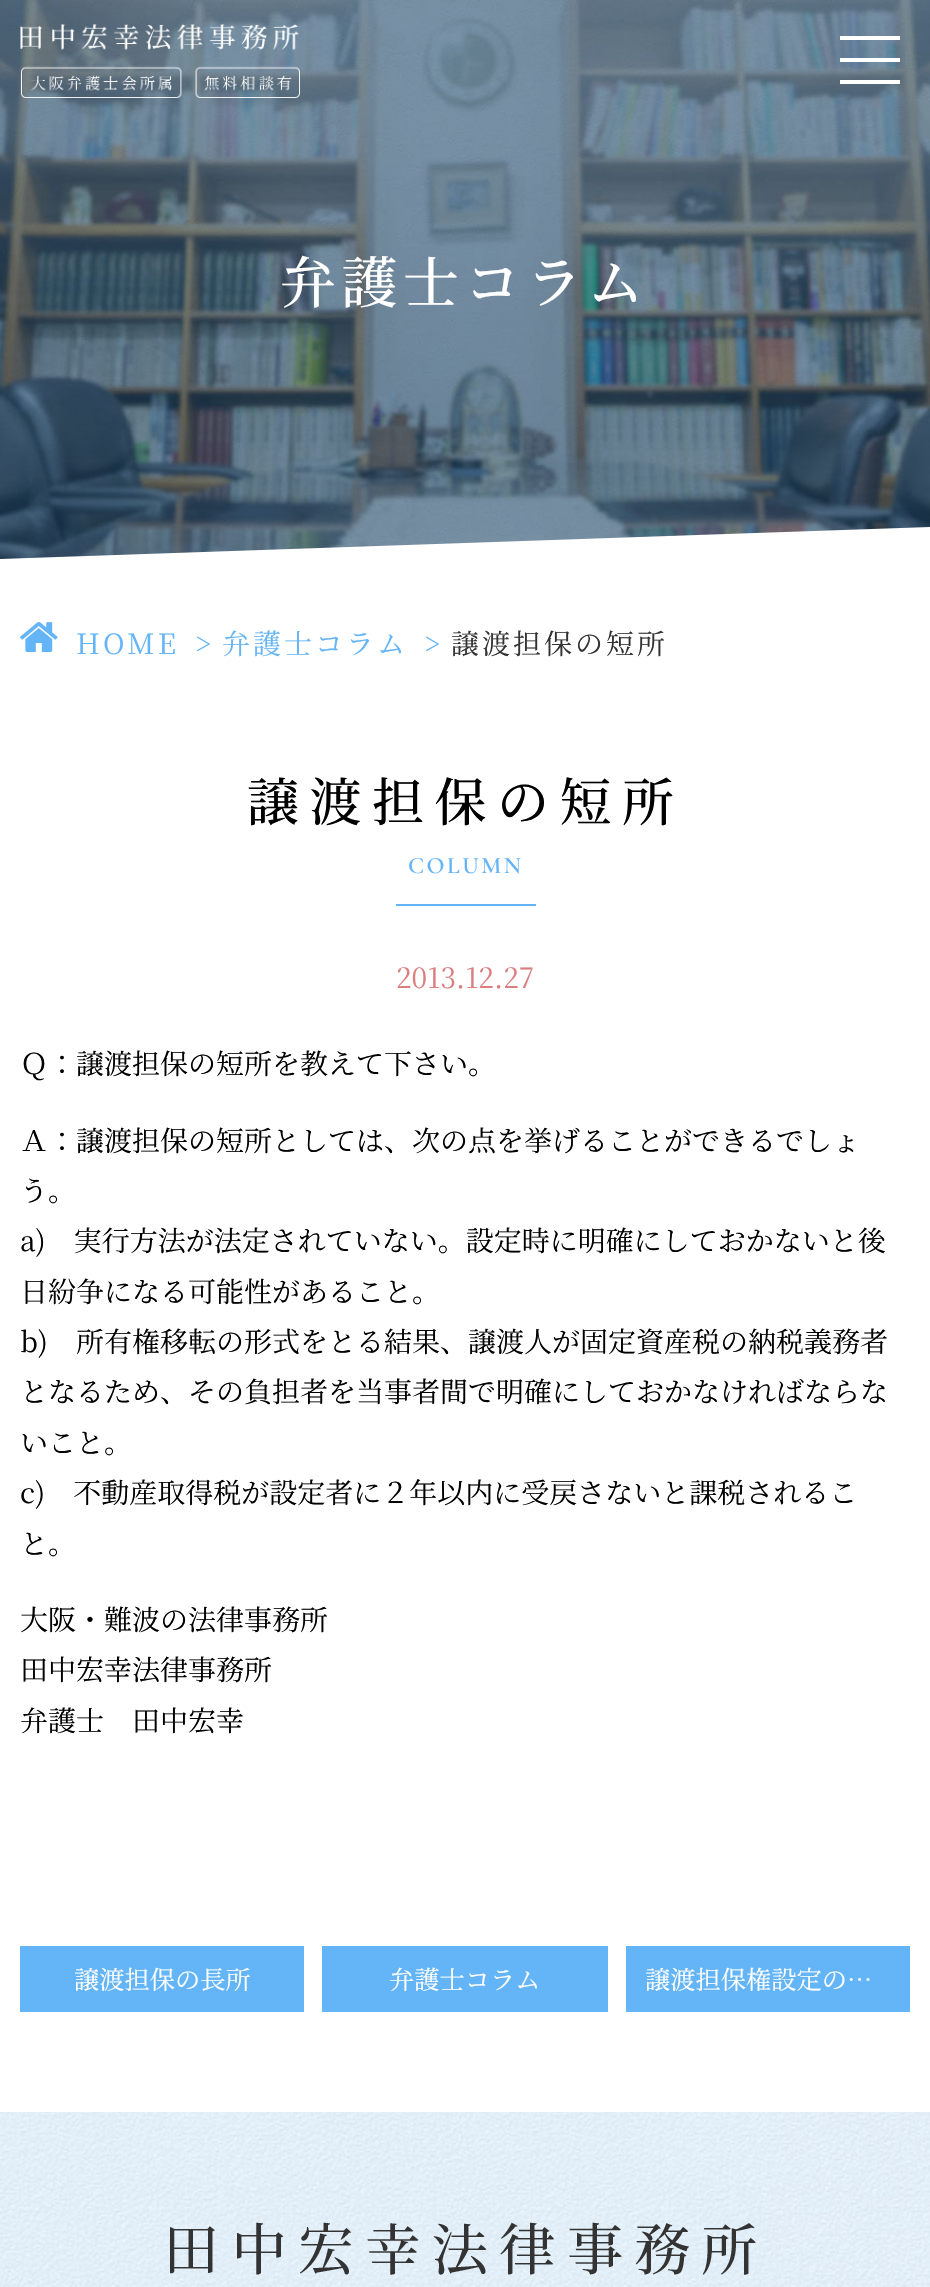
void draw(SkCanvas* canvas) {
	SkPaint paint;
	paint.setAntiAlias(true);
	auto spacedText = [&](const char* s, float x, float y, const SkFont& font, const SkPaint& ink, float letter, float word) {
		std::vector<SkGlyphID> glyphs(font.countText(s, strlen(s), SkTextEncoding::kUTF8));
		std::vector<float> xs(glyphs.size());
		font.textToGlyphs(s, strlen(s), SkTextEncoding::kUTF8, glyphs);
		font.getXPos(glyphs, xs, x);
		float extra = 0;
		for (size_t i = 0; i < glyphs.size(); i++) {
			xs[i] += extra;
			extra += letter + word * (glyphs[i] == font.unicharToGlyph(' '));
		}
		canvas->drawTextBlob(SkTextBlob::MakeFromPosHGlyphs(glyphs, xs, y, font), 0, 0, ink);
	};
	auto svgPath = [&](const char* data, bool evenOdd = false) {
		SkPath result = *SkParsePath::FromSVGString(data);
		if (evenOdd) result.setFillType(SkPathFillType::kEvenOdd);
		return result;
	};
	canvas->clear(0xffffffff);
	canvas->drawImageRect(SkImages::DeferredFromEncodedData(SkData::MakeFromFileName("img2.png")), SkRect::MakeXYWH(0, 0, 930, 560), SkSamplingOptions());
	canvas->drawImageRect(SkImages::DeferredFromEncodedData(SkData::MakeFromFileName("img1.png")), SkRect::MakeXYWH(20, 24, 280, 74), SkSamplingOptions());
	paint.setColor(0xffffffff);
	canvas->drawRect(SkRect::MakeXYWH(840, 36, 60, 4), paint);
	canvas->drawRect(SkRect::MakeXYWH(840, 58, 60, 4), paint);
	canvas->drawRect(SkRect::MakeXYWH(840, 80, 60, 4), paint);
	SkFont f1(fontMgr->matchFamilyStyle("Noto Serif JP", SkFontStyle(500, SkFontStyle::kNormal_Width, SkFontStyle::kUpright_Slant)), 56);
	f1.setSubpixel(true);
	spacedText("弁護士コラム", 280, 303, f1, paint, 5.5, 0);
	canvas->save();
	canvas->clipRect(SkRect::MakeXYWH(0, 0, 930, 560));
	canvas->drawPath(svgPath("M0 559L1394 511L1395 560L1 608Z"), paint);
	canvas->restore();
	canvas->drawImageRect(SkImages::DeferredFromEncodedData(SkData::MakeFromFileName("img3.png")), SkRect::MakeXYWH(20, 622, 38, 30), SkSamplingOptions());
	SkFont f2(fontMgr->matchFamilyStyle("Noto Serif JP", SkFontStyle::Normal()), 28);
	f2.setSubpixel(true);
	paint.setColor(0xff64b5f7);
	spacedText("HOME", 76, 654, f2, paint, 3, 0);
	spacedText(">", 195, 654, f2, paint, -5, 0);
	spacedText("弁護士コラム", 222, 654, f2, paint, 3, 0);
	spacedText(">", 424, 654, f2, paint, -5, 0);
	paint.setColor(0xff333333);
	spacedText("譲渡担保の短所", 451, 654, f2, paint, 3, 0);
	SkFont f3(fontMgr->matchFamilyStyle("Noto Serif JP", SkFontStyle(500, SkFontStyle::kNormal_Width, SkFontStyle::kUpright_Slant)), 52);
	f3.setSubpixel(true);
	paint.setColor(0xff000000);
	spacedText("譲渡担保の短所", 247, 821, f3, paint, 10.5, 0);
	SkFont f4(fontMgr->matchFamilyStyle("Cormorant Garamond", SkFontStyle(600, SkFontStyle::kNormal_Width, SkFontStyle::kUpright_Slant)), 23.5);
	f4.setSubpixel(true);
	paint.setColor(0xff64b5f7);
	spacedText("COLUMN", 408, 873, f4, paint, 2.5, 0);
	canvas->drawRect(SkRect::MakeXYWH(396, 904, 140, 2), paint);
	paint.setColor(0xffdb7e80);
	canvas->drawString("2013.12.27", 396, 988, f2, paint);
	paint.setColor(0xff000000);
	canvas->drawString("Ｑ：譲渡担保の短所を教えて下さい。", 20, 1074, f2, paint);
	canvas->drawString("Ａ：譲渡担保の短所としては、次の点を挙げることができるでしょ", 20, 1151, f2, paint);
	canvas->drawString("う。", 20, 1201, f2, paint);
	canvas->drawString("a)　実行方法が法定されていない。設定時に明確にしておかないと後", 20, 1251, f2, paint);
	canvas->drawString("日紛争になる可能性があること。", 20, 1302, f2, paint);
	canvas->drawString("b)　所有権移転の形式をとる結果、譲渡人が固定資産税の納税義務者", 20, 1352, f2, paint);
	canvas->drawString("となるため、その負担者を当事者間で明確にしておかなければならな", 20, 1402, f2, paint);
	canvas->drawString("いこと。", 20, 1453, f2, paint);
	canvas->drawString("c)　不動産取得税が設定者に２年以内に受戻さないと課税されるこ", 20, 1503, f2, paint);
	canvas->drawString("と。", 20, 1554, f2, paint);
	canvas->drawString("大阪・難波の法律事務所", 20, 1630, f2, paint);
	canvas->drawString("田中宏幸法律事務所", 20, 1680, f2, paint);
	canvas->drawString("弁護士　田中宏幸", 20, 1731, f2, paint);
	paint.setColor(0xff64b5f7);
	canvas->drawRect(SkRect::MakeXYWH(20, 1946, 284, 66), paint);
	SkFont f5(fontMgr->matchFamilyStyle("Noto Serif JP", SkFontStyle::Normal()), 25.25);
	f5.setSubpixel(true);
	paint.setColor(0xffffffff);
	canvas->drawString("譲渡担保の長所", 74, 1989, f5, paint);
	paint.setColor(0xff64b5f7);
	canvas->drawRect(SkRect::MakeXYWH(322, 1946, 286, 66), paint);
	paint.setColor(0xffffffff);
	canvas->drawString("弁護士コラム", 389, 1989, f5, paint);
	paint.setColor(0xff64b5f7);
	canvas->drawRect(SkRect::MakeXYWH(626, 1946, 284, 66), paint);
	paint.setColor(0xffffffff);
	canvas->drawString("譲渡担保権設定の…", 645, 1989, f5, paint);
	canvas->drawImageRect(SkImages::DeferredFromEncodedData(SkData::MakeFromFileName("img4.png")), SkRect::MakeXYWH(0, 2112, 930, 175), SkSamplingOptions());
	canvas->drawImageRect(SkImages::DeferredFromEncodedData(SkData::MakeFromFileName("img5.png")), SkRect::MakeXYWH(170, 2222, 586, 53), SkSamplingOptions());
}
